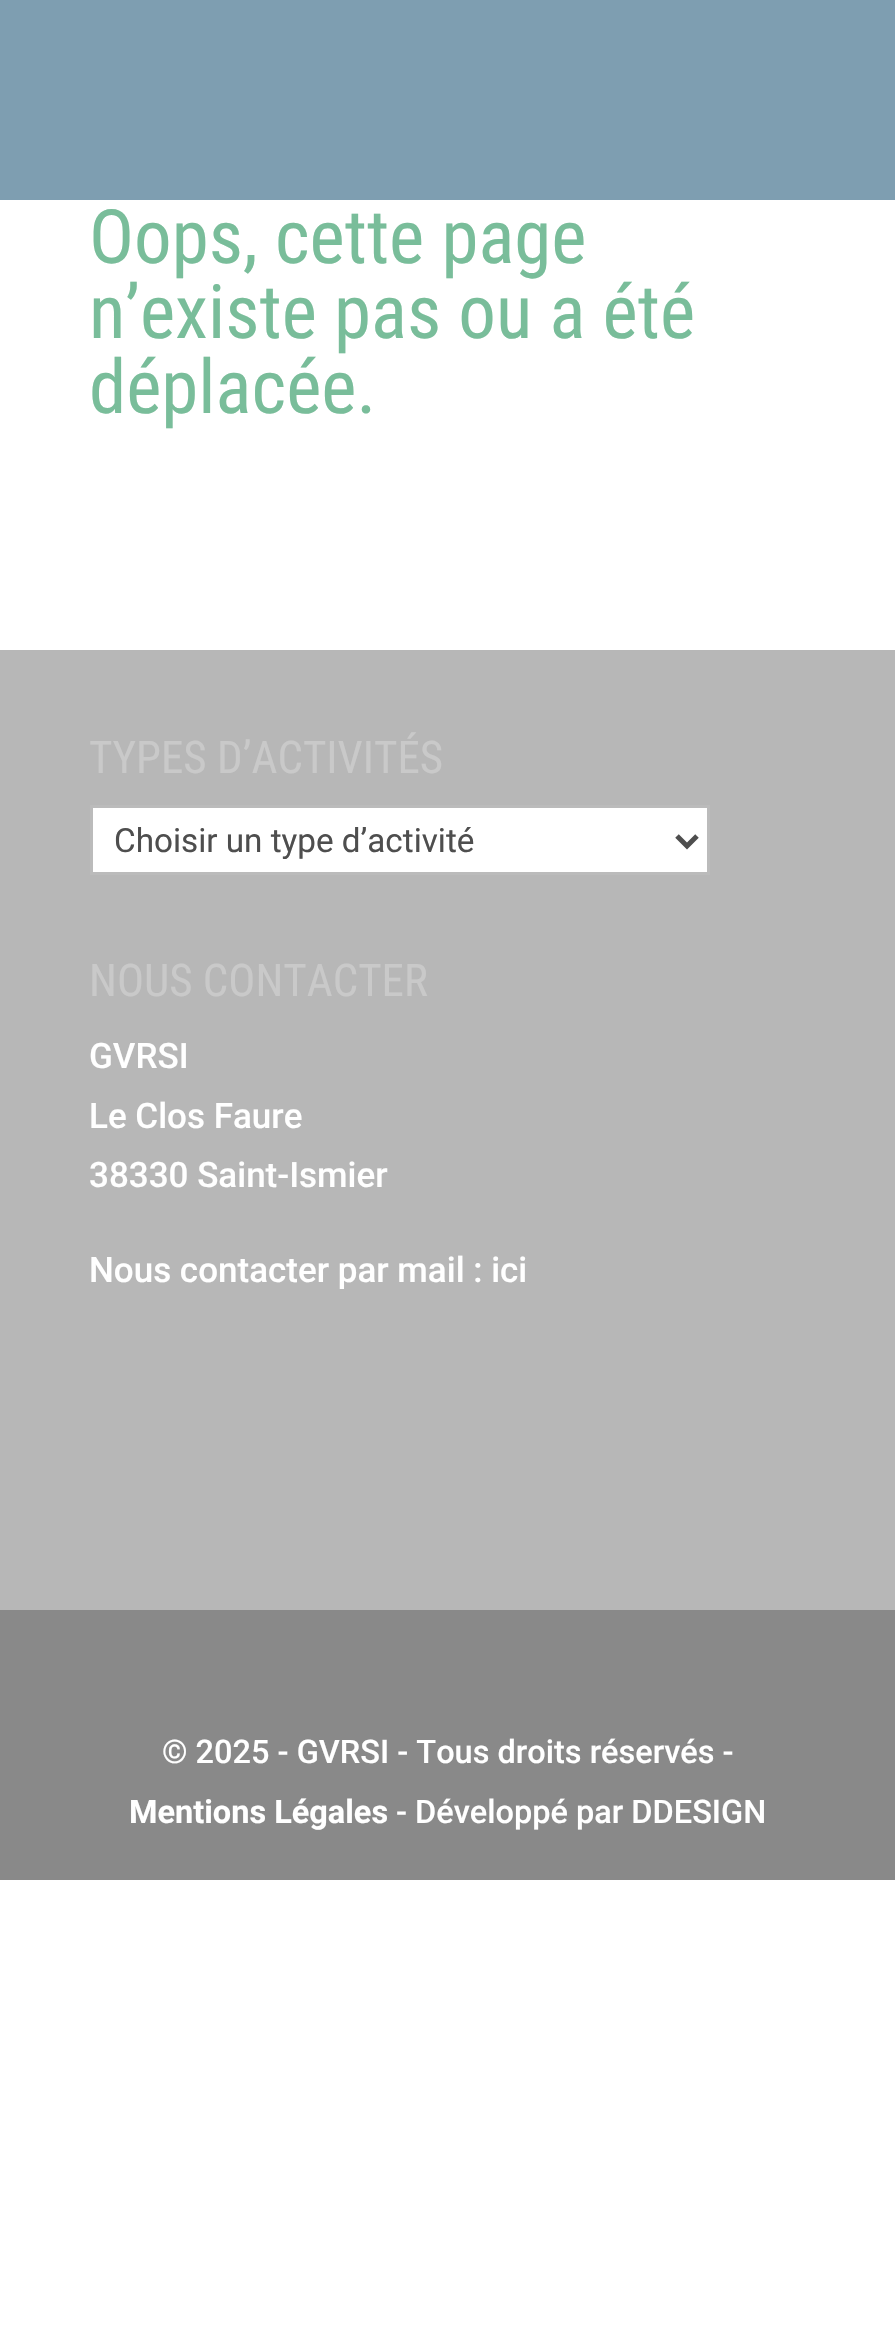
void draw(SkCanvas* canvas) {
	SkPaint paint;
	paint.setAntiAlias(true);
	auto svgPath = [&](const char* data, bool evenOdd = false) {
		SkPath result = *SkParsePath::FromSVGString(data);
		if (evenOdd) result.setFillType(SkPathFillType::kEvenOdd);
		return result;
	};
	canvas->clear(0xffffffff);
	paint.setColor(0xff7e9eb1);
	canvas->drawRect(SkRect::MakeXYWH(0, 0, 895, 200), paint);
	SkFont f1(fontMgr->matchFamilyStyle("Roboto Condensed", SkFontStyle::Normal()), 75);
	f1.setSubpixel(true);
	paint.setColor(0xff79bd9a);
	canvas->drawString("Oops, cette page", 89, 263, f1, paint);
	canvas->drawString("n’existe pas ou a été", 89, 338, f1, paint);
	canvas->drawString("déplacée.", 89, 413, f1, paint);
	paint.setColor(0xffb7b7b7);
	canvas->drawRect(SkRect::MakeXYWH(0, 650, 895, 960), paint);
	SkFont f2(fontMgr->matchFamilyStyle("Roboto Condensed", SkFontStyle::Normal()), 45);
	f2.setSubpixel(true);
	paint.setColor(0xffc9c9c9);
	canvas->drawString("TYPES D’ACTIVITÉS", 89, 773, f2, paint);
	paint.setColor(0xffffffff);
	canvas->drawRect(SkRect::MakeXYWH(91.5, 806.5, 617, 67), paint);
	paint.setStroke(true);
	paint.setStrokeWidth(3);
	paint.setColor(0xffbbbbbb);
	canvas->drawRect(SkRect::MakeXYWH(91.5, 806.5, 617, 67), paint);
	paint.setStrokeWidth(5);
	paint.setColor(0xff4e4e4e);
	canvas->drawPath(svgPath("M677 836L687 846L697 836"), paint);
	SkFont f3(fontMgr->matchFamilyStyle("Roboto", SkFontStyle::Normal()), 33.25);
	f3.setSubpixel(true);
	paint.setStroke(false);
	canvas->drawString("Choisir un type d’activité", 114, 852, f3, paint);
	paint.setColor(0xffc9c9c9);
	canvas->drawString("NOUS CONTACTER", 89, 996, f2, paint);
	SkFont f4(fontMgr->matchFamilyStyle("Roboto", SkFontStyle(500, SkFontStyle::kNormal_Width, SkFontStyle::kUpright_Slant)), 35);
	f4.setSubpixel(true);
	paint.setColor(0xffffffff);
	canvas->drawString("GVRSI", 89, 1068, f4, paint);
	canvas->drawString("Le Clos Faure", 89, 1128, f4, paint);
	canvas->drawString("38330 Saint-Ismier", 89, 1187, f4, paint);
	canvas->drawString("Nous contacter par mail : ici", 89, 1282, f4, paint);
	paint.setColor(0xff898989);
	canvas->drawRect(SkRect::MakeXYWH(0, 1610, 895, 270), paint);
	SkFont f5(fontMgr->matchFamilyStyle("Roboto", SkFontStyle(500, SkFontStyle::kNormal_Width, SkFontStyle::kUpright_Slant)), 32.5);
	f5.setSubpixel(true);
	paint.setColor(0xffffffff);
	canvas->drawString("© 2025 - GVRSI - Tous droits réservés -", 162, 1763, f5, paint);
	SkFont f6(fontMgr->matchFamilyStyle("Roboto", SkFontStyle::Bold()), 32.5);
	f6.setSubpixel(true);
	canvas->drawString("Mentions Légales", 129, 1823, f6, paint);
	canvas->drawString("- Développé par DDESIGN", 396, 1823, f5, paint);
}
